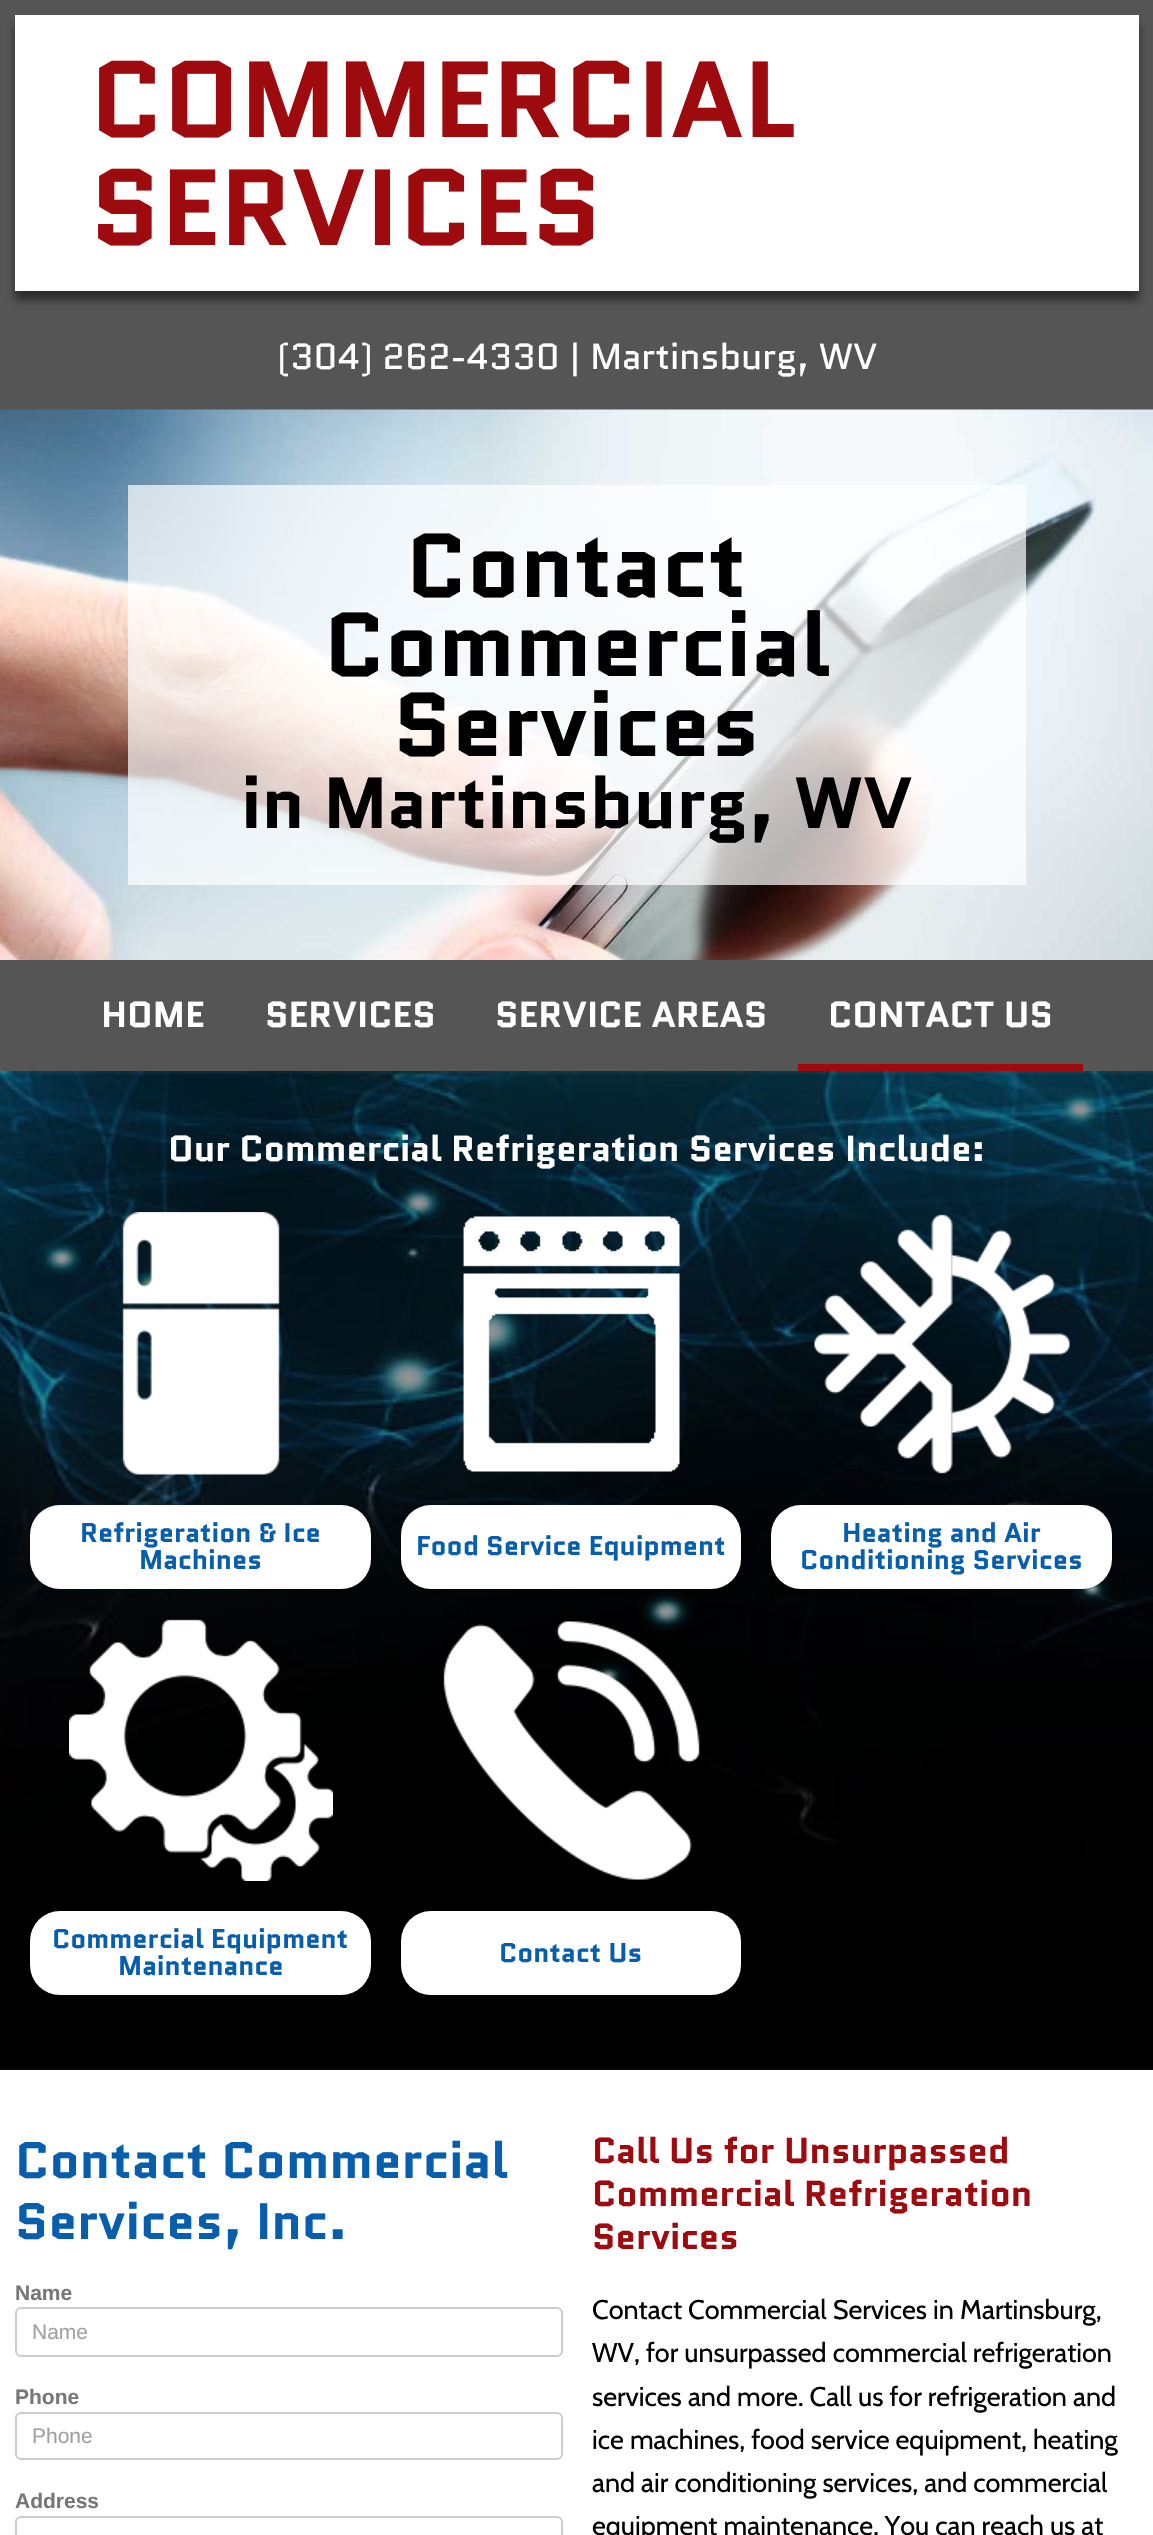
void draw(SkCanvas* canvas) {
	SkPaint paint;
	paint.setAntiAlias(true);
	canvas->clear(0xffffffff);
	paint.setColor(0xff555555);
	canvas->drawRect(SkRect::MakeXYWH(0, 0, 1153, 410), paint);
	paint.setColor(0x80000000);
	paint.setMaskFilter(SkMaskFilter::MakeBlur(kNormal_SkBlurStyle, 4.5));
	canvas->drawRect(SkRect::MakeXYWH(15, 24, 1124, 276), paint);
	paint.setMaskFilter(nullptr);
	paint.setColor(0xffffffff);
	canvas->drawRect(SkRect::MakeXYWH(15, 15, 1124, 276), paint);
	SkFont f1(fontMgr->matchFamilyStyle("Quantico", SkFontStyle::Bold()), 108);
	f1.setSubpixel(true);
	paint.setColor(0xff9e0b0f);
	canvas->drawString("COMMERCIAL", 90, 137, f1, paint);
	canvas->drawString("SERVICES", 90, 245, f1, paint);
	SkFont f2(fontMgr->matchFamilyStyle("Quantico", SkFontStyle::Normal()), 36);
	f2.setSubpixel(true);
	paint.setColor(0xffffffff);
	canvas->drawString("(304) 262-4330 | Martinsburg, WV", 277, 369, f2, paint);
	canvas->drawImageRect(SkImages::DeferredFromEncodedData(SkData::MakeFromFileName("img1.png")), SkRect::MakeXYWH(0, 409, 1153, 551), SkSamplingOptions());
	paint.setColor(0xb3ffffff);
	canvas->drawRect(SkRect::MakeXYWH(128, 485, 898, 400), paint);
	SkFont f3(fontMgr->matchFamilyStyle("Quantico", SkFontStyle::Bold()), 90);
	f3.setSubpixel(true);
	paint.setColor(0xff000000);
	canvas->drawString("Contact", 406, 597, f3, paint);
	canvas->drawString("Commercial", 324, 676, f3, paint);
	canvas->drawString("Services", 393, 756, f3, paint);
	SkFont f4(fontMgr->matchFamilyStyle("Quantico", SkFontStyle::Bold()), 72);
	f4.setSubpixel(true);
	canvas->drawString("in Martinsburg, WV", 241, 828, f4, paint);
	paint.setColor(0xff555555);
	canvas->drawRect(SkRect::MakeXYWH(0, 960, 1153, 111), paint);
	SkFont f5(fontMgr->matchFamilyStyle("Quantico", SkFontStyle::Bold()), 36);
	f5.setSubpixel(true);
	paint.setColor(0xffffffff);
	canvas->drawString("HOME", 101, 1027, f5, paint);
	canvas->drawString("SERVICES", 265, 1027, f5, paint);
	canvas->drawString("SERVICE AREAS", 495, 1027, f5, paint);
	canvas->drawString("CONTACT US", 828, 1027, f5, paint);
	paint.setColor(0xff9e0b0f);
	canvas->drawRect(SkRect::MakeXYWH(798, 1064, 285, 7), paint);
	canvas->drawImageRect(SkImages::DeferredFromEncodedData(SkData::MakeFromFileName("img2.png")), SkRect::MakeXYWH(0, 1071, 1153, 999), SkSamplingOptions());
	paint.setColor(0xffffffff);
	canvas->drawString("Our Commercial Refrigeration Services Include:", 168, 1161, f5, paint);
	canvas->drawImageRect(SkImages::DeferredFromEncodedData(SkData::MakeFromFileName("img3.png")), SkRect::MakeXYWH(122, 1212, 158, 263), SkSamplingOptions());
	canvas->drawRoundRect(SkRect::MakeXYWH(30, 1505, 341, 84), 30, 30, paint);
	SkFont f6(fontMgr->matchFamilyStyle("Quantico", SkFontStyle::Bold()), 27);
	f6.setSubpixel(true);
	paint.setColor(0xff065ead);
	canvas->drawString("Refrigeration & Ice", 80, 1542, f6, paint);
	canvas->drawString("Machines", 139, 1569, f6, paint);
	canvas->drawImageRect(SkImages::DeferredFromEncodedData(SkData::MakeFromFileName("img4.png")), SkRect::MakeXYWH(463, 1216, 217, 256), SkSamplingOptions());
	paint.setColor(0xffffffff);
	canvas->drawRoundRect(SkRect::MakeXYWH(401, 1505, 340, 84), 30, 30, paint);
	paint.setColor(0xff065ead);
	canvas->drawString("Food Service Equipment", 416, 1555, f6, paint);
	canvas->drawImageRect(SkImages::DeferredFromEncodedData(SkData::MakeFromFileName("img5.png")), SkRect::MakeXYWH(814, 1214, 256, 260), SkSamplingOptions());
	paint.setColor(0xffffffff);
	canvas->drawRoundRect(SkRect::MakeXYWH(771, 1505, 341, 84), 30, 30, paint);
	paint.setColor(0xff065ead);
	canvas->drawString("Heating and Air", 842, 1542, f6, paint);
	canvas->drawString("Conditioning Services", 800, 1569, f6, paint);
	canvas->drawImageRect(SkImages::DeferredFromEncodedData(SkData::MakeFromFileName("img6.png")), SkRect::MakeXYWH(69, 1619, 264, 262), SkSamplingOptions());
	paint.setColor(0xffffffff);
	canvas->drawRoundRect(SkRect::MakeXYWH(30, 1911, 341, 84), 30, 30, paint);
	paint.setColor(0xff065ead);
	canvas->drawString("Commercial Equipment", 52, 1948, f6, paint);
	canvas->drawString("Maintenance", 118, 1975, f6, paint);
	canvas->drawImageRect(SkImages::DeferredFromEncodedData(SkData::MakeFromFileName("img7.png")), SkRect::MakeXYWH(443, 1621, 257, 259), SkSamplingOptions());
	paint.setColor(0xffffffff);
	canvas->drawRoundRect(SkRect::MakeXYWH(401, 1911, 340, 84), 30, 30, paint);
	paint.setColor(0xff065ead);
	canvas->drawString("Contact Us", 499, 1962, f6, paint);
	SkFont f7(fontMgr->matchFamilyStyle("Quantico", SkFontStyle::Bold()), 51);
	f7.setSubpixel(true);
	canvas->drawString("Contact Commercial", 15, 2178, f7, paint);
	canvas->drawString("Services, Inc.", 15, 2239, f7, paint);
	SkFont f8(fontMgr->matchFamilyStyle("Liberation Sans", SkFontStyle::Bold()), 21);
	f8.setSubpixel(true);
	paint.setColor(0xff777777);
	canvas->drawString("Name", 15, 2300, f8, paint);
	paint.setStroke(true);
	paint.setStrokeWidth(2);
	paint.setColor(0xffcccccc);
	canvas->drawRoundRect(SkRect::MakeXYWH(16, 2308, 546, 48), 5, 5, paint);
	SkFont f9(fontMgr->matchFamilyStyle("Liberation Sans", SkFontStyle::Normal()), 21);
	f9.setSubpixel(true);
	paint.setStroke(false);
	paint.setColor(0xffa1a1a1);
	canvas->drawString("Name", 32, 2339, f9, paint);
	paint.setColor(0xff777777);
	canvas->drawString("Phone", 15, 2404, f8, paint);
	paint.setStroke(true);
	paint.setColor(0xffcccccc);
	canvas->drawRoundRect(SkRect::MakeXYWH(16, 2413, 546, 46), 5, 5, paint);
	paint.setStroke(false);
	paint.setColor(0xffa1a1a1);
	canvas->drawString("Phone", 32, 2443, f9, paint);
	paint.setColor(0xff777777);
	canvas->drawString("Address", 15, 2508, f8, paint);
	paint.setStroke(true);
	paint.setColor(0xffcccccc);
	canvas->drawRoundRect(SkRect::MakeXYWH(16, 2517, 546, 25), 5, 5, paint);
	paint.setStroke(false);
	paint.setColor(0xff9e0b0f);
	canvas->drawString("Call Us for Unsurpassed", 592, 2163, f5, paint);
	canvas->drawString("Commercial Refrigeration", 592, 2206, f5, paint);
	canvas->drawString("Services", 592, 2249, f5, paint);
	SkFont f10(fontMgr->matchFamilyStyle("Cabin", SkFontStyle::Normal()), 27);
	f10.setSubpixel(true);
	paint.setColor(0xff000000);
	canvas->drawString("Contact Commercial Services in Martinsburg,", 592, 2319, f10, paint);
	canvas->drawString("WV, for unsurpassed commercial refrigeration", 592, 2362, f10, paint);
	canvas->drawString("services and more. Call us for refrigeration and", 592, 2406, f10, paint);
	canvas->drawString("ice machines, food service equipment, heating", 592, 2449, f10, paint);
	canvas->drawString("and air conditioning services, and commercial", 592, 2492, f10, paint);
	canvas->drawString("equipment maintenance. You can reach us at", 592, 2535, f10, paint);
}
